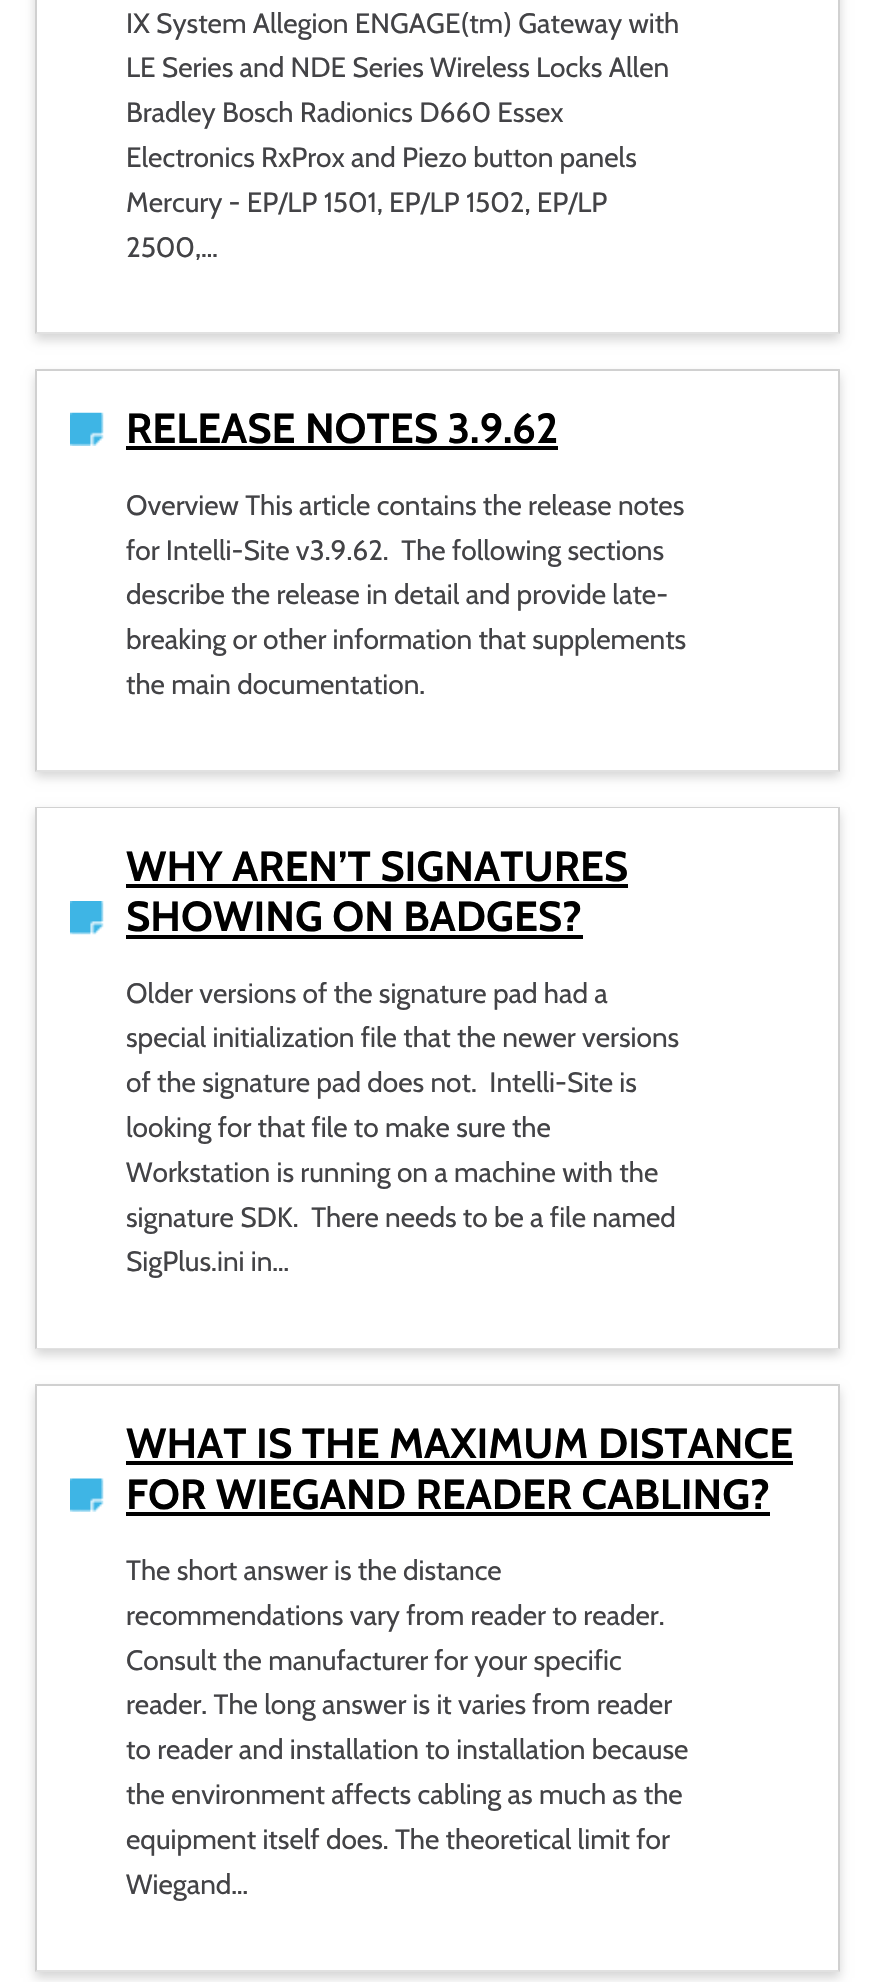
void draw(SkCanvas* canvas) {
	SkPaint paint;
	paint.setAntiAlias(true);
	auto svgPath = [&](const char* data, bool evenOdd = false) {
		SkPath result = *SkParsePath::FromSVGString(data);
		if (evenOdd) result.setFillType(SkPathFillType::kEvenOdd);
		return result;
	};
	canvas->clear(0xffffffff);
	canvas->save();
	canvas->clipPath(svgPath("M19 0H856V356H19ZM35-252H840V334H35Z", true), true);
	paint.setColor(0x29000000);
	paint.setMaskFilter(SkMaskFilter::MakeBlur(kNormal_SkBlurStyle, 5));
	canvas->drawRect(SkRect::MakeXYWH(35, -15, 805, 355), paint);
	paint.setMaskFilter(nullptr);
	canvas->restore();
	paint.setColor(0xffd1d1d1);
	canvas->drawPath(svgPath("M840-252V334L838 332V-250Z"), paint);
	paint.setColor(0x3d808080);
	canvas->drawPath(svgPath("M840 334H35L37 332H838Z"), paint);
	paint.setColor(0x54707070);
	canvas->drawPath(svgPath("M35 334V-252L37-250V332Z"), paint);
	SkFont f1(fontMgr->matchFamilyStyle("Cabin", SkFontStyle::Normal()), 28);
	f1.setSubpixel(true);
	paint.setColor(0xff434346);
	canvas->drawString("IX System Allegion ENGAGE(tm) Gateway with", 126, 33, f1, paint);
	canvas->drawString("LE Series and NDE Series Wireless Locks Allen", 126, 77, f1, paint);
	canvas->drawString("Bradley Bosch Radionics D660 Essex", 126, 122, f1, paint);
	canvas->drawString("Electronics RxProx and Piezo button panels", 126, 167, f1, paint);
	canvas->drawString("Mercury - EP/LP 1501, EP/LP 1502, EP/LP", 126, 212, f1, paint);
	canvas->drawString("2500,…", 126, 257, f1, paint);
	canvas->save();
	canvas->clipPath(svgPath("M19 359H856V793H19ZM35 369H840V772H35Z", true), true);
	paint.setColor(0x29000000);
	paint.setMaskFilter(SkMaskFilter::MakeBlur(kNormal_SkBlurStyle, 5));
	canvas->drawRect(SkRect::MakeXYWH(35, 375, 805, 402), paint);
	paint.setMaskFilter(nullptr);
	canvas->restore();
	paint.setColor(0xffd0d0d0);
	canvas->drawPath(svgPath("M35 369H840L838 371H37Z"), paint);
	paint.setColor(0x54707070);
	canvas->drawPath(svgPath("M840 369V772L838 770V371Z"), paint);
	paint.setColor(0x3d808080);
	canvas->drawPath(svgPath("M840 772H35L37 770H838Z"), paint);
	paint.setColor(0x54707070);
	canvas->drawPath(svgPath("M35 772V369L37 371V770Z"), paint);
	canvas->drawImageRect(SkImages::DeferredFromEncodedData(SkData::MakeFromFileName("img1.png")), SkRect::MakeXYWH(70, 412, 34, 34), SkSamplingOptions());
	SkFont f2(fontMgr->matchFamilyStyle("Cabin", SkFontStyle::Bold()), 42);
	f2.setSubpixel(true);
	paint.setColor(0xff000000);
	canvas->drawString("RELEASE NOTES 3.9.62", 126, 443, f2, paint);
	canvas->drawRect(SkRect::MakeXYWH(126, 446, 432, 4), paint);
	paint.setColor(0xff434346);
	canvas->drawString("Overview This article contains the release notes", 126, 515, f1, paint);
	canvas->drawString("for Intelli-Site v3.9.62.  The following sections", 126, 560, f1, paint);
	canvas->drawString("describe the release in detail and provide late-", 126, 604, f1, paint);
	canvas->drawString("breaking or other information that supplements", 126, 649, f1, paint);
	canvas->drawString("the main documentation.", 126, 694, f1, paint);
	canvas->save();
	canvas->clipPath(svgPath("M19 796H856V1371H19ZM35 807H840V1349H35Z", true), true);
	paint.setColor(0x29000000);
	paint.setMaskFilter(SkMaskFilter::MakeBlur(kNormal_SkBlurStyle, 5));
	canvas->drawRect(SkRect::MakeXYWH(35, 812, 805, 543), paint);
	paint.setMaskFilter(nullptr);
	canvas->restore();
	paint.setColor(0xffd1d1d1);
	canvas->drawPath(svgPath("M35 807H840L838 808H37Z"), paint);
	paint.setColor(0x54707070);
	canvas->drawPath(svgPath("M840 807V1349L838 1348V808Z"), paint);
	paint.setColor(0x3d808080);
	canvas->drawPath(svgPath("M840 1349H35L37 1348H838Z"), paint);
	paint.setColor(0x54707070);
	canvas->drawPath(svgPath("M35 1349V807L37 808V1348Z"), paint);
	paint.setColor(0xff000000);
	canvas->drawString("WHY AREN’T SIGNATURES", 126, 881, f2, paint);
	canvas->drawRect(SkRect::MakeXYWH(126, 884, 502, 4), paint);
	canvas->drawImageRect(SkImages::DeferredFromEncodedData(SkData::MakeFromFileName("img2.png")), SkRect::MakeXYWH(70, 901, 34, 34), SkSamplingOptions());
	canvas->drawString("SHOWING ON BADGES?", 126, 931, f2, paint);
	canvas->drawRect(SkRect::MakeXYWH(126, 935, 457, 4), paint);
	paint.setColor(0xff434346);
	canvas->drawString("Older versions of the signature pad had a", 126, 1003, f1, paint);
	canvas->drawString("special initialization file that the newer versions", 126, 1047, f1, paint);
	canvas->drawString("of the signature pad does not.  Intelli-Site is", 126, 1092, f1, paint);
	canvas->drawString("looking for that file to make sure the", 126, 1137, f1, paint);
	canvas->drawString("Workstation is running on a machine with the", 126, 1182, f1, paint);
	canvas->drawString("signature SDK.  There needs to be a file named", 126, 1227, f1, paint);
	canvas->drawString("SigPlus.ini in…", 126, 1271, f1, paint);
	canvas->save();
	canvas->clipPath(svgPath("M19 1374H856V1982H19ZM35 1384H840V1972H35Z", true), true);
	paint.setColor(0x29000000);
	paint.setMaskFilter(SkMaskFilter::MakeBlur(kNormal_SkBlurStyle, 5));
	canvas->drawRect(SkRect::MakeXYWH(35, 1390, 805, 588), paint);
	paint.setMaskFilter(nullptr);
	canvas->restore();
	paint.setColor(0xffd0d0d0);
	canvas->drawPath(svgPath("M35 1384H840L838 1386H37Z"), paint);
	paint.setColor(0x54707070);
	canvas->drawPath(svgPath("M840 1384V1972L838 1970V1386Z"), paint);
	paint.setColor(0x3d808080);
	canvas->drawPath(svgPath("M840 1972H35L37 1970H838Z"), paint);
	paint.setColor(0x54707070);
	canvas->drawPath(svgPath("M35 1972V1384L37 1386V1970Z"), paint);
	paint.setColor(0xff000000);
	canvas->drawString("WHAT IS THE MAXIMUM DISTANCE", 126, 1458, f2, paint);
	canvas->drawRect(SkRect::MakeXYWH(126, 1461, 667, 4), paint);
	canvas->drawImageRect(SkImages::DeferredFromEncodedData(SkData::MakeFromFileName("img3.png")), SkRect::MakeXYWH(70, 1478, 34, 34), SkSamplingOptions());
	canvas->drawString("FOR WIEGAND READER CABLING?", 126, 1509, f2, paint);
	canvas->drawRect(SkRect::MakeXYWH(126, 1512, 644, 4), paint);
	paint.setColor(0xff434346);
	canvas->drawString("The short answer is the distance", 126, 1580, f1, paint);
	canvas->drawString("recommendations vary from reader to reader.", 126, 1625, f1, paint);
	canvas->drawString("Consult the manufacturer for your specific", 126, 1670, f1, paint);
	canvas->drawString("reader. The long answer is it varies from reader", 126, 1714, f1, paint);
	canvas->drawString("to reader and installation to installation because", 126, 1759, f1, paint);
	canvas->drawString("the environment affects cabling as much as the", 126, 1804, f1, paint);
	canvas->drawString("equipment itself does. The theoretical limit for", 126, 1849, f1, paint);
	canvas->drawString("Wiegand…", 126, 1894, f1, paint);
}
